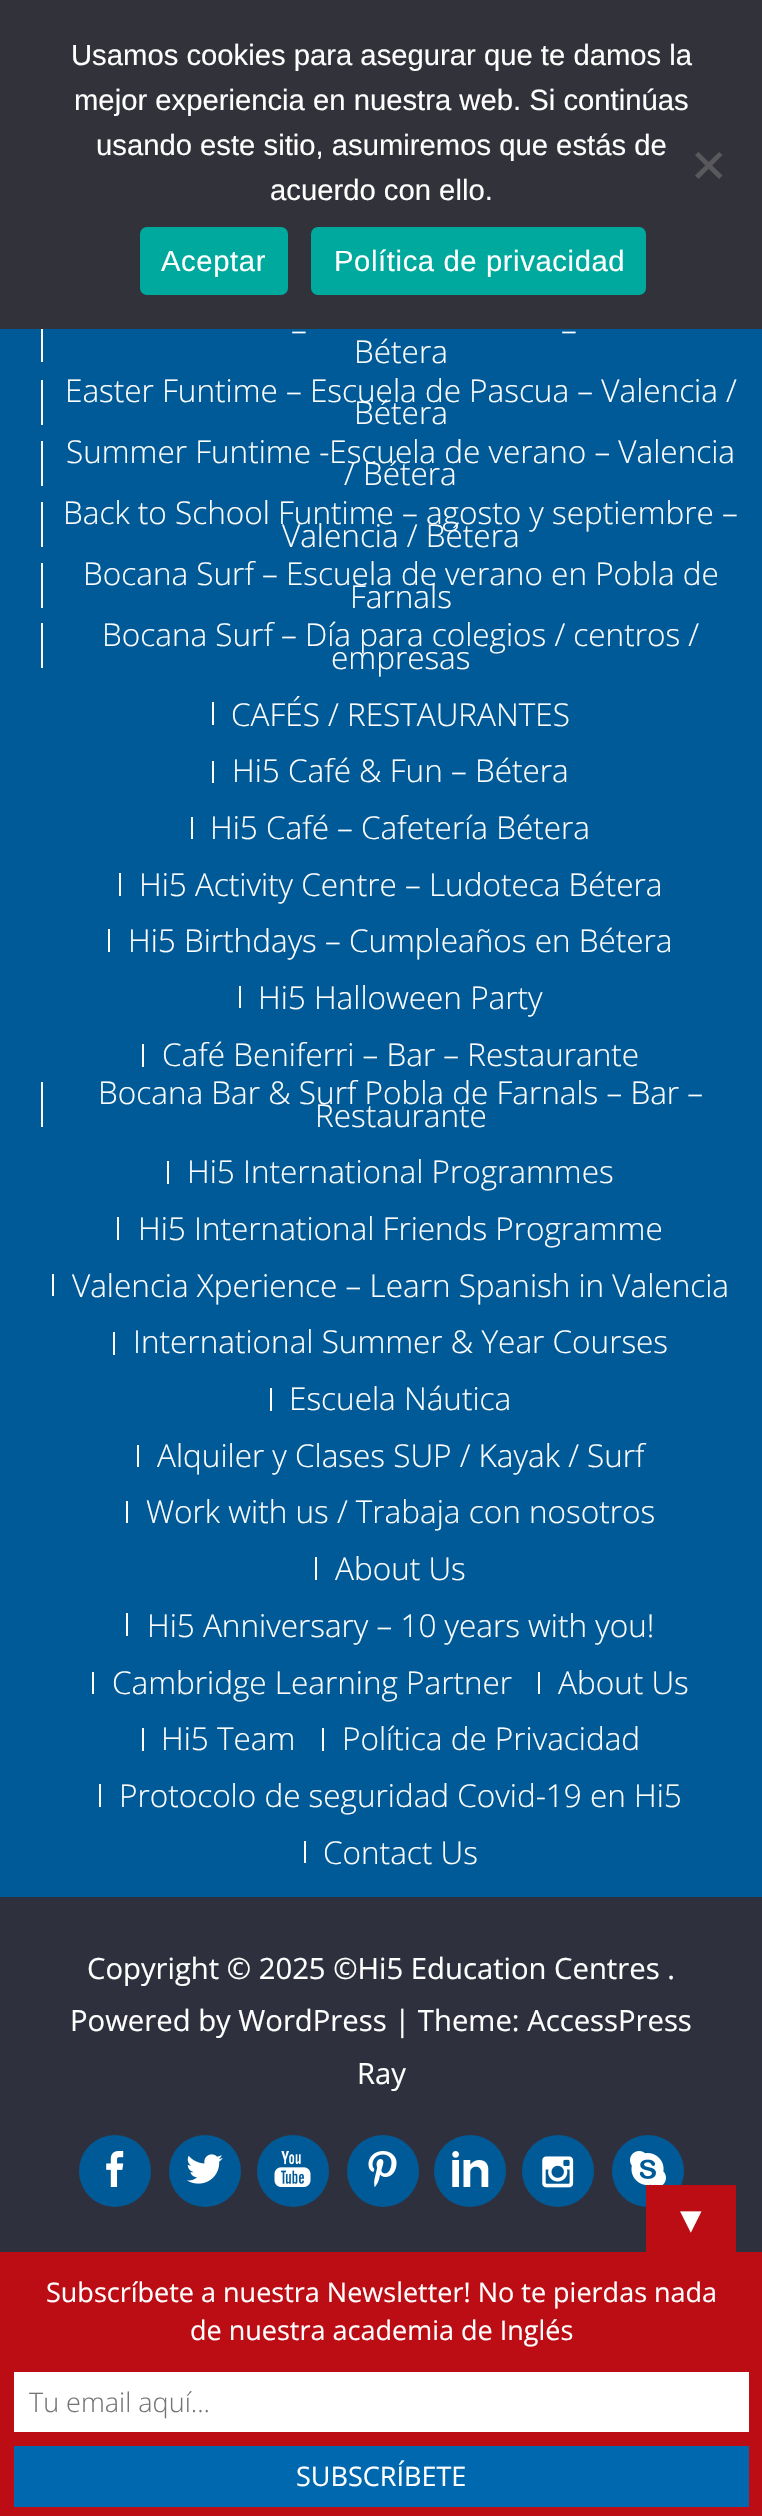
void draw(SkCanvas* canvas) {
	SkPaint paint;
	paint.setAntiAlias(true);
	auto spacedText = [&](const char* s, float x, float y, const SkFont& font, const SkPaint& ink, float letter, float word) {
		std::vector<SkGlyphID> glyphs(font.countText(s, strlen(s), SkTextEncoding::kUTF8));
		std::vector<float> xs(glyphs.size());
		font.textToGlyphs(s, strlen(s), SkTextEncoding::kUTF8, glyphs);
		font.getXPos(glyphs, xs, x);
		float extra = 0;
		for (size_t i = 0; i < glyphs.size(); i++) {
			xs[i] += extra;
			extra += letter + word * (glyphs[i] == font.unicharToGlyph(' '));
		}
		canvas->drawTextBlob(SkTextBlob::MakeFromPosHGlyphs(glyphs, xs, y, font), 0, 0, ink);
	};
	auto svgPath = [&](const char* data, bool evenOdd = false) {
		SkPath result = *SkParsePath::FromSVGString(data);
		if (evenOdd) result.setFillType(SkPathFillType::kEvenOdd);
		return result;
	};
	canvas->clear(0xff005a97);
	paint.setColor(0xff32323a);
	canvas->drawRect(SkRect::MakeXYWH(0, 0, 762, 329), paint);
	SkFont f1(fontMgr->matchFamilyStyle("Liberation Sans", SkFontStyle::Normal()), 29.25);
	f1.setSubpixel(true);
	paint.setColor(0xffffffff);
	canvas->drawString("Usamos cookies para asegurar que te damos la", 71, 65, f1, paint);
	canvas->drawString("mejor experiencia en nuestra web. Si continúas", 74, 110, f1, paint);
	canvas->drawString("usando este sitio, asumiremos que estás de", 96, 155, f1, paint);
	canvas->drawString("acuerdo con ello.", 270, 200, f1, paint);
	paint.setColor(0xff59595d);
	canvas->drawPath(svgPath("M719 152L722.5 155L698.5 179L695 175.5Z"), paint);
	canvas->drawPath(svgPath("M695 155L698.5 152L722.5 175.5L719 179Z"), paint);
	paint.setColor(0xff00a99d);
	canvas->drawRoundRect(SkRect::MakeXYWH(140, 227, 148, 68), 7, 7, paint);
	paint.setColor(0xffffffff);
	spacedText("Aceptar", 161, 271, f1, paint, 0.6, 0);
	paint.setColor(0xff00a99d);
	canvas->drawRoundRect(SkRect::MakeXYWH(311, 227, 335, 68), 7, 7, paint);
	paint.setColor(0xffffffff);
	spacedText("Política de privacidad", 334, 271, f1, paint, 0.6, 0);
	canvas->drawRect(SkRect::MakeXYWH(41, 329, 2, 33), paint);
	SkFont f2(fontMgr->matchFamilyStyle("Open Sans", SkFontStyle(300, SkFontStyle::kNormal_Width, SkFontStyle::kUpright_Slant)), 31.5);
	f2.setSubpixel(true);
	canvas->drawString("–", 291, 341, f2, paint);
	canvas->drawString("–", 561, 341, f2, paint);
	canvas->drawString("Bétera", 354, 363, f2, paint);
	canvas->drawRect(SkRect::MakeXYWH(41, 380, 2, 45), paint);
	canvas->drawString("Easter Funtime – Escuela de Pascua – Valencia /", 65, 402, f2, paint);
	canvas->drawString("Bétera", 354, 424, f2, paint);
	canvas->drawRect(SkRect::MakeXYWH(41, 441, 2, 45), paint);
	canvas->drawString("Summer Funtime -Escuela de verano – Valencia", 66, 463, f2, paint);
	canvas->drawString("/ Bétera", 344, 485, f2, paint);
	canvas->drawRect(SkRect::MakeXYWH(41, 502, 2, 45), paint);
	canvas->drawString("Back to School Funtime – agosto y septiembre –", 63, 524, f2, paint);
	canvas->drawString("Valencia / Bétera", 282, 547, f2, paint);
	canvas->drawRect(SkRect::MakeXYWH(41, 563, 2, 45), paint);
	canvas->drawString("Bocana Surf – Escuela de verano en Pobla de", 83, 585, f2, paint);
	canvas->drawString("Farnals", 350, 608, f2, paint);
	canvas->drawRect(SkRect::MakeXYWH(41, 623, 2, 45), paint);
	canvas->drawString("Bocana Surf – Día para colegios / centros /", 102, 646, f2, paint);
	canvas->drawString("empresas", 331, 669, f2, paint);
	canvas->drawRect(SkRect::MakeXYWH(212, 702, 2, 23), paint);
	canvas->drawString("CAFÉS / RESTAURANTES", 231, 726, f2, paint);
	canvas->drawRect(SkRect::MakeXYWH(212, 761, 2, 22), paint);
	canvas->drawString("Hi5 Café & Fun – Bétera", 232, 782, f2, paint);
	canvas->drawRect(SkRect::MakeXYWH(191, 817, 2, 22), paint);
	canvas->drawString("Hi5 Café – Cafetería Bétera", 210, 839, f2, paint);
	canvas->drawRect(SkRect::MakeXYWH(119, 873, 2, 23), paint);
	canvas->drawString("Hi5 Activity Centre – Ludoteca Bétera", 139, 896, f2, paint);
	canvas->drawRect(SkRect::MakeXYWH(108, 929, 2, 23), paint);
	canvas->drawString("Hi5 Birthdays – Cumpleaños en Bétera", 128, 952, f2, paint);
	canvas->drawRect(SkRect::MakeXYWH(239, 986, 2, 22), paint);
	canvas->drawString("Hi5 Halloween Party", 258, 1009, f2, paint);
	canvas->drawRect(SkRect::MakeXYWH(142, 1044, 2, 23), paint);
	canvas->drawString("Café Beniferri – Bar – Restaurante", 162, 1066, f2, paint);
	canvas->drawRect(SkRect::MakeXYWH(41, 1082, 2, 45), paint);
	canvas->drawString("Bocana Bar & Surf Pobla de Farnals – Bar –", 98, 1104, f2, paint);
	canvas->drawString("Restaurante", 315, 1127, f2, paint);
	canvas->drawRect(SkRect::MakeXYWH(167, 1161, 2, 23), paint);
	canvas->drawString("Hi5 International Programmes", 187, 1183, f2, paint);
	canvas->drawRect(SkRect::MakeXYWH(117, 1217, 2, 23), paint);
	canvas->drawString("Hi5 International Friends Programme", 138, 1240, f2, paint);
	canvas->drawRect(SkRect::MakeXYWH(52, 1274, 2, 22), paint);
	canvas->drawString("Valencia Xperience – Learn Spanish in Valencia", 72, 1297, f2, paint);
	canvas->drawRect(SkRect::MakeXYWH(113, 1332, 2, 23), paint);
	canvas->drawString("International Summer & Year Courses", 133, 1353, f2, paint);
	canvas->drawRect(SkRect::MakeXYWH(270, 1388, 2, 23), paint);
	canvas->drawString("Escuela Náutica", 289, 1410, f2, paint);
	canvas->drawRect(SkRect::MakeXYWH(137, 1445, 2, 22), paint);
	canvas->drawString("Alquiler y Clases SUP / Kayak / Surf", 157, 1467, f2, paint);
	canvas->drawRect(SkRect::MakeXYWH(126, 1501, 2, 22), paint);
	canvas->drawString("Work with us / Trabaja con nosotros", 146, 1523, f2, paint);
	canvas->drawRect(SkRect::MakeXYWH(315, 1557, 2, 23), paint);
	canvas->drawString("About Us", 335, 1580, f2, paint);
	canvas->drawRect(SkRect::MakeXYWH(126, 1613, 2, 23), paint);
	canvas->drawString("Hi5 Anniversary – 10 years with you!", 147, 1637, f2, paint);
	canvas->drawRect(SkRect::MakeXYWH(92, 1672, 2, 22), paint);
	canvas->drawString("Cambridge Learning Partner", 112, 1694, f2, paint);
	canvas->drawRect(SkRect::MakeXYWH(538, 1672, 2, 22), paint);
	canvas->drawString("About Us", 558, 1694, f2, paint);
	canvas->drawRect(SkRect::MakeXYWH(142, 1728, 2, 23), paint);
	canvas->drawString("Hi5 Team", 161, 1750, f2, paint);
	canvas->drawRect(SkRect::MakeXYWH(322, 1728, 2, 23), paint);
	canvas->drawString("Política de Privacidad", 342, 1750, f2, paint);
	canvas->drawRect(SkRect::MakeXYWH(99, 1784, 2, 23), paint);
	canvas->drawString("Protocolo de seguridad Covid-19 en Hi5", 119, 1807, f2, paint);
	canvas->drawRect(SkRect::MakeXYWH(304, 1841, 2, 22), paint);
	canvas->drawString("Contact Us", 323, 1864, f2, paint);
	paint.setColor(0xff2e313d);
	canvas->drawRect(SkRect::MakeXYWH(0, 1897, 762, 355), paint);
	SkFont f3(fontMgr->matchFamilyStyle("Open Sans", SkFontStyle::Normal()), 29.25);
	f3.setSubpixel(true);
	paint.setColor(0xffffffff);
	canvas->drawString("Copyright © 2025 ©Hi5 Education Centres .", 87, 1979, f3, paint);
	canvas->drawString("Powered by WordPress | Theme: AccessPress", 70, 2031, f3, paint);
	canvas->drawString("Ray", 357, 2084, f3, paint);
	paint.setColor(0xff005a97);
	canvas->drawCircle(115, 2171, 36, paint);
	canvas->drawImageRect(SkImages::DeferredFromEncodedData(SkData::MakeFromFileName("img1.png")), SkRect::MakeXYWH(106, 2151, 18, 36), SkSamplingOptions());
	canvas->drawCircle(205, 2171, 36, paint);
	canvas->drawImageRect(SkImages::DeferredFromEncodedData(SkData::MakeFromFileName("img2.png")), SkRect::MakeXYWH(187, 2154, 36, 30), SkSamplingOptions());
	canvas->drawCircle(293, 2171, 36, paint);
	canvas->drawImageRect(SkImages::DeferredFromEncodedData(SkData::MakeFromFileName("img3.png")), SkRect::MakeXYWH(274, 2151, 37, 36), SkSamplingOptions());
	canvas->drawCircle(383, 2171, 36, paint);
	canvas->drawImageRect(SkImages::DeferredFromEncodedData(SkData::MakeFromFileName("img4.png")), SkRect::MakeXYWH(368, 2151, 29, 36), SkSamplingOptions());
	canvas->drawCircle(470, 2171, 36, paint);
	canvas->drawImageRect(SkImages::DeferredFromEncodedData(SkData::MakeFromFileName("img5.png")), SkRect::MakeXYWH(452, 2151, 37, 36), SkSamplingOptions());
	canvas->drawCircle(558, 2171, 36, paint);
	canvas->drawImageRect(SkImages::DeferredFromEncodedData(SkData::MakeFromFileName("img6.png")), SkRect::MakeXYWH(542, 2156, 32, 32), SkSamplingOptions());
	canvas->drawCircle(648, 2171, 36, paint);
	canvas->drawImageRect(SkImages::DeferredFromEncodedData(SkData::MakeFromFileName("img7.png")), SkRect::MakeXYWH(630, 2151, 36, 34), SkSamplingOptions());
	paint.setColor(0xffbc0d15);
	canvas->drawRect(SkRect::MakeXYWH(646, 2185, 90, 67), paint);
	SkFont f4(fontMgr->matchFamilyStyle("Liberation Sans", SkFontStyle::Normal()), 36);
	f4.setSubpixel(true);
	paint.setColor(0xffffffff);
	canvas->drawString("▼", 673, 2232, f4, paint);
	paint.setColor(0xffbc0d15);
	canvas->drawRect(SkRect::MakeXYWH(0, 2252, 762, 264), paint);
	SkFont f5(fontMgr->matchFamilyStyle("Open Sans", SkFontStyle::Normal()), 27);
	f5.setSubpixel(true);
	paint.setColor(0xffffffff);
	canvas->drawString("Subscríbete a nuestra Newsletter! No te pierdas nada", 46, 2302, f5, paint);
	canvas->drawString("de nuestra academia de Inglés", 190, 2340, f5, paint);
	canvas->drawRect(SkRect::MakeXYWH(14, 2372, 735, 60), paint);
	SkFont f6(fontMgr->matchFamilyStyle("Open Sans", SkFontStyle(300, SkFontStyle::kNormal_Width, SkFontStyle::kUpright_Slant)), 27);
	f6.setSubpixel(true);
	paint.setColor(0xff757575);
	canvas->drawString("Tu email aquí...", 29, 2412, f6, paint);
	paint.setColor(0xff0068af);
	canvas->drawRect(SkRect::MakeXYWH(14, 2446, 735, 61), paint);
	paint.setColor(0xffffffff);
	canvas->drawString("SUBSCRÍBETE", 296, 2486, f5, paint);
}
